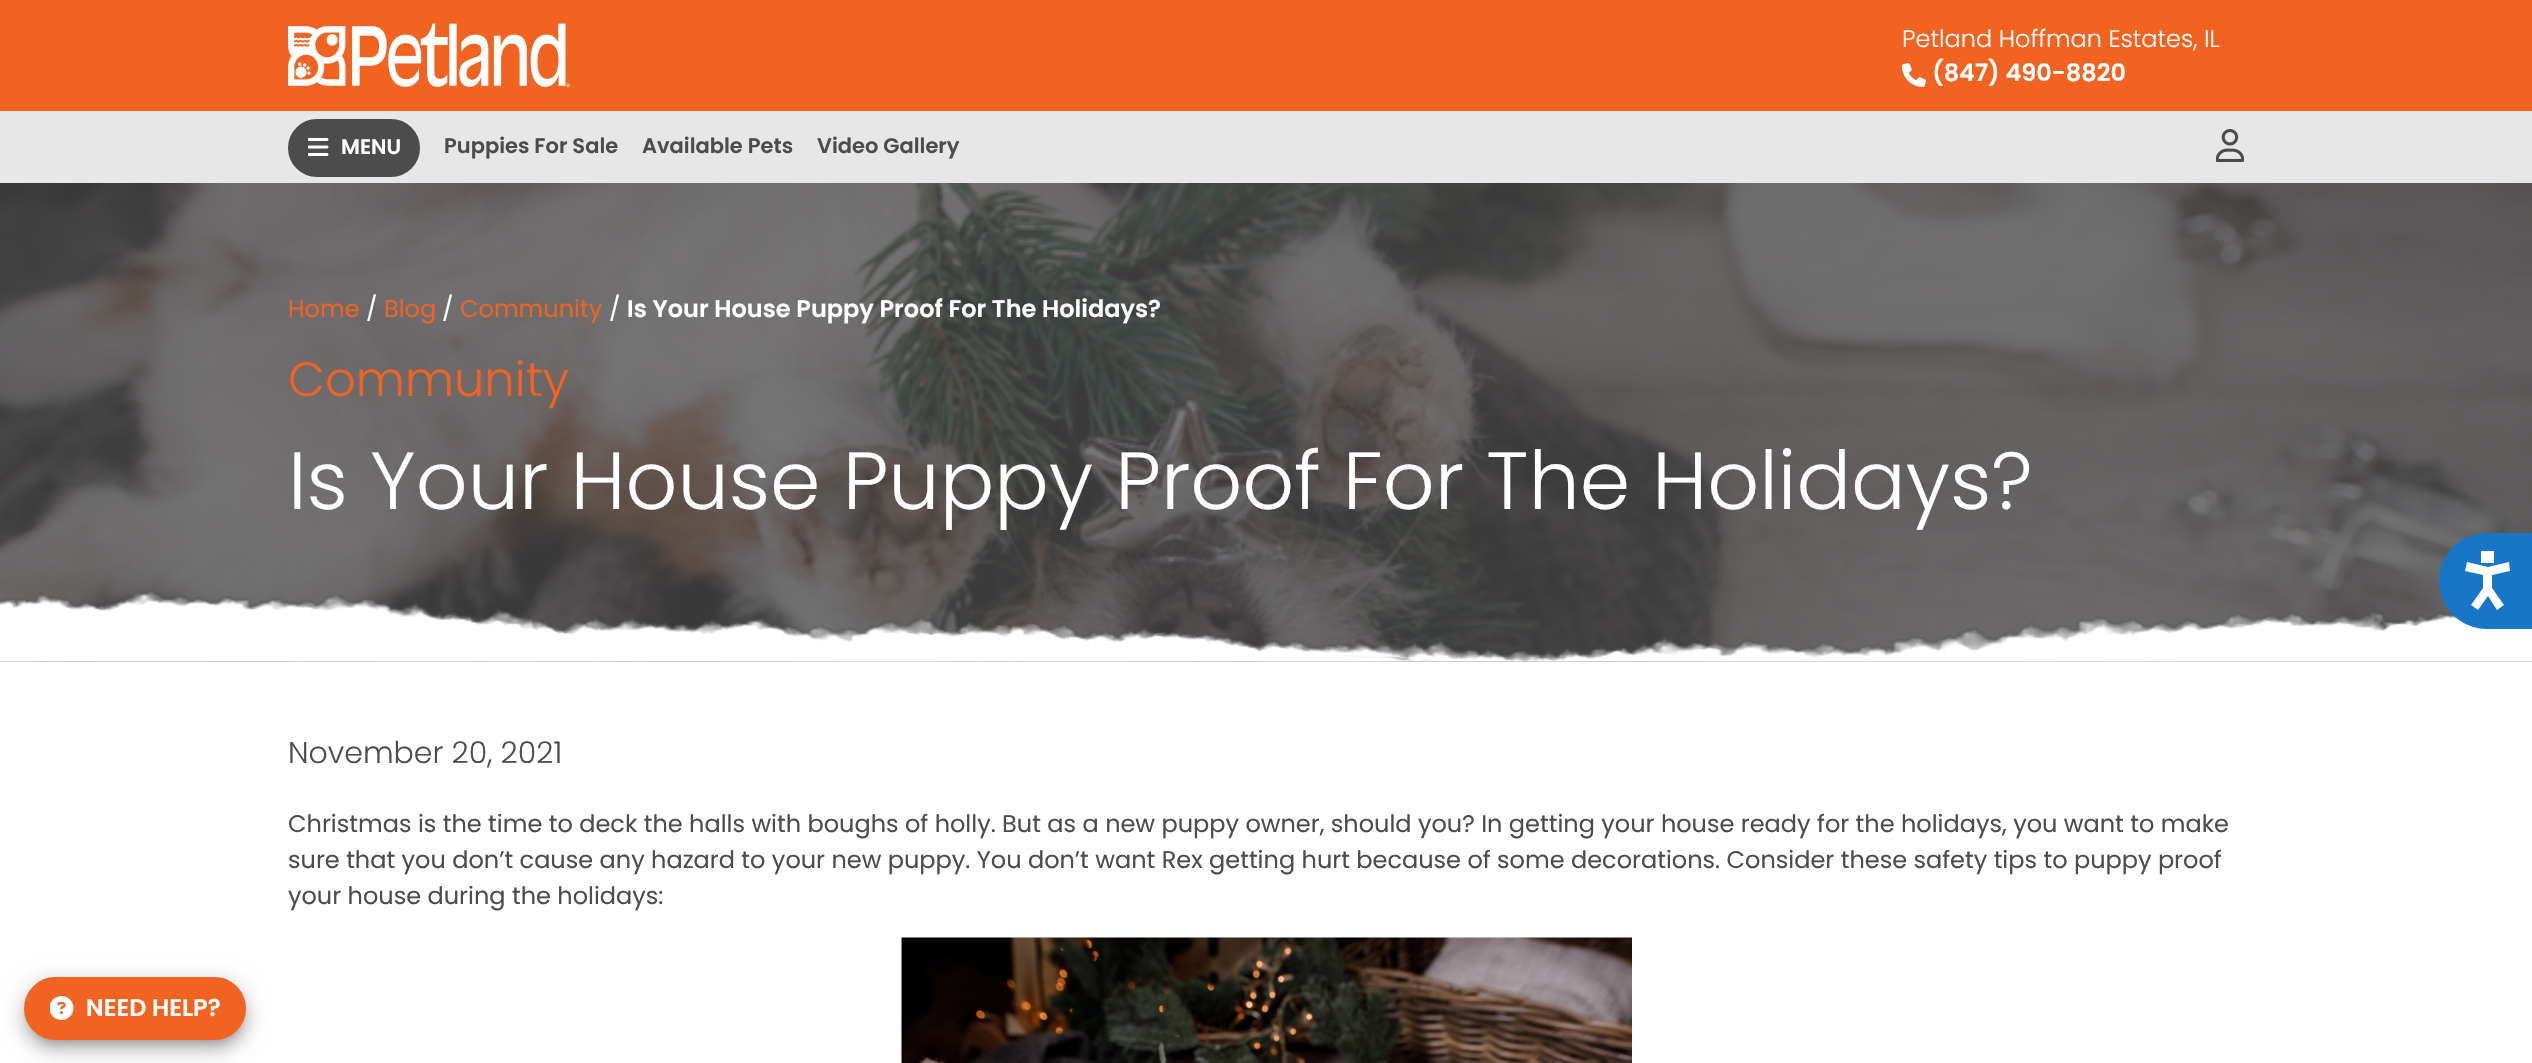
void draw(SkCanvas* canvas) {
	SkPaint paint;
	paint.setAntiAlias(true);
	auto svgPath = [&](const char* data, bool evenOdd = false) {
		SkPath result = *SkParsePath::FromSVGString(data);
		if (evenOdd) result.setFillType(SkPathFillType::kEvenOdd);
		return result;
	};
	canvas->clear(0xffffffff);
	paint.setColor(0xffe7e7e7);
	canvas->drawRect(SkRect::MakeXYWH(0, 111, 2532, 72), paint);
	paint.setColor(0xfff26322);
	canvas->drawRect(SkRect::MakeXYWH(0, 0, 2532, 111), paint);
	canvas->drawImageRect(SkImages::DeferredFromEncodedData(SkData::MakeFromFileName("img1.png")), SkRect::MakeXYWH(288, 23, 282, 65), SkSamplingOptions());
	SkFont f1(fontMgr->matchFamilyStyle("Poppins", SkFontStyle(300, SkFontStyle::kNormal_Width, SkFontStyle::kUpright_Slant)), 24);
	f1.setSubpixel(true);
	paint.setColor(0xffffffff);
	canvas->drawString("Petland Hoffman Estates, IL", 1902, 47, f1, paint);
	canvas->drawImageRect(SkImages::DeferredFromEncodedData(SkData::MakeFromFileName("img2.png")), SkRect::MakeXYWH(1902, 63, 24, 24), SkSamplingOptions());
	SkFont f2(fontMgr->matchFamilyStyle("Poppins", SkFontStyle(600, SkFontStyle::kNormal_Width, SkFontStyle::kUpright_Slant)), 24);
	f2.setSubpixel(true);
	canvas->drawString("(847) 490-8820", 1932, 81, f2, paint);
	paint.setColor(0xff4c4c4c);
	canvas->drawRoundRect(SkRect::MakeXYWH(289, 120, 130, 56), 28, 28, paint);
	paint.setStroke(true);
	paint.setStrokeWidth(2);
	canvas->drawRoundRect(SkRect::MakeXYWH(289, 120, 130, 56), 28, 28, paint);
	canvas->drawImageRect(SkImages::DeferredFromEncodedData(SkData::MakeFromFileName("img3.png")), SkRect::MakeXYWH(308, 138, 21, 18), SkSamplingOptions());
	SkFont f3(fontMgr->matchFamilyStyle("Poppins", SkFontStyle(600, SkFontStyle::kNormal_Width, SkFontStyle::kUpright_Slant)), 21);
	f3.setSubpixel(true);
	paint.setStroke(false);
	paint.setColor(0xffffffff);
	canvas->drawString("MENU", 341, 154, f3, paint);
	paint.setColor(0xff4c4c4c);
	canvas->drawString("Puppies For Sale", 444, 153, f3, paint);
	canvas->drawString("Available Pets", 642, 153, f3, paint);
	canvas->drawString("Video Gallery", 817, 153, f3, paint);
	canvas->drawImageRect(SkImages::DeferredFromEncodedData(SkData::MakeFromFileName("img4.png")), SkRect::MakeXYWH(2216, 129, 28, 33), SkSamplingOptions());
	canvas->drawImageRect(SkImages::DeferredFromEncodedData(SkData::MakeFromFileName("img5.png")), SkRect::MakeXYWH(0, 183, 2532, 479), SkSamplingOptions());
	SkFont f4(fontMgr->matchFamilyStyle("Poppins", SkFontStyle::Normal()), 24);
	f4.setSubpixel(true);
	paint.setColor(0xfff26322);
	canvas->drawString("Home", 288, 317, f4, paint);
	paint.setColor(0xffffffff);
	canvas->drawString("/", 366, 317, f4, paint);
	paint.setColor(0xfff26322);
	canvas->drawString("Blog", 384, 317, f4, paint);
	paint.setColor(0xffffffff);
	canvas->drawString("/", 442, 317, f4, paint);
	paint.setColor(0xfff26322);
	canvas->drawString("Community", 460, 317, f4, paint);
	paint.setColor(0xffffffff);
	canvas->drawString("/", 609, 317, f4, paint);
	canvas->drawString("Is Your House Puppy Proof For The Holidays?", 627, 317, f2, paint);
	SkFont f5(fontMgr->matchFamilyStyle("Poppins", SkFontStyle(300, SkFontStyle::kNormal_Width, SkFontStyle::kUpright_Slant)), 48);
	f5.setSubpixel(true);
	paint.setColor(0xfff26322);
	canvas->drawString("Community", 288, 396, f5, paint);
	SkFont f6(fontMgr->matchFamilyStyle("Poppins", SkFontStyle(300, SkFontStyle::kNormal_Width, SkFontStyle::kUpright_Slant)), 81);
	f6.setSubpixel(true);
	paint.setColor(0xffffffff);
	canvas->drawString("Is Your House Puppy Proof For The Holidays?", 288, 509, f6, paint);
	canvas->drawImageRect(SkImages::DeferredFromEncodedData(SkData::MakeFromFileName("img6.png")), SkRect::MakeXYWH(0, 590, 2532, 72), SkSamplingOptions());
	SkFont f7(fontMgr->matchFamilyStyle("Poppins", SkFontStyle(300, SkFontStyle::kNormal_Width, SkFontStyle::kUpright_Slant)), 30);
	f7.setSubpixel(true);
	paint.setColor(0xff4c4c4c);
	canvas->drawString("November 20, 2021", 288, 763, f7, paint);
	canvas->drawString("Christmas is the time to deck the halls with boughs of holly. But as a new puppy owner, should you? In getting your house ready for the holidays, you want to make", 288, 832, f4, paint);
	canvas->drawString("sure that you don’t cause any hazard to your new puppy. You don’t want Rex getting hurt because of some decorations. Consider these safety tips to puppy proof", 288, 868, f4, paint);
	canvas->drawString("your house during the holidays:", 288, 904, f4, paint);
	canvas->drawImageRect(SkImages::DeferredFromEncodedData(SkData::MakeFromFileName("img7.png")), SkRect::MakeXYWH(901, 937, 731, 126), SkSamplingOptions());
	paint.setColor(0xff1876c9);
	canvas->drawPath(svgPath("M2487 533H2532V629H2487C2460.5 629 2439 607.5 2439 581C2439 554.5 2460.5 533 2487 533Z"), paint);
	canvas->save();
	canvas->clipRect(SkRect::MakeXYWH(2457, 551, 60, 60));
	paint.setColor(0xffffffff);
	canvas->drawPath(svgPath("M2483 575L2465 571L2467 562L2488 567L2509 562L2510 571L2492 575V588L2504 605L2497 610L2488 596L2478 610L2471 605L2483 588ZM2481 550H2494V563H2481Z"), paint);
	canvas->restore();
	paint.setColor(0x1f000000);
	paint.setMaskFilter(SkMaskFilter::MakeBlur(kNormal_SkBlurStyle, 10.5));
	canvas->drawRoundRect(SkRect::MakeXYWH(21, 978, 228, 69), 34.5, 34.5, paint);
	paint.setMaskFilter(nullptr);
	paint.setColor(0x24000000);
	paint.setMaskFilter(SkMaskFilter::MakeBlur(kNormal_SkBlurStyle, 7.5));
	canvas->drawRoundRect(SkRect::MakeXYWH(23, 987, 225, 66), 33, 33, paint);
	paint.setMaskFilter(nullptr);
	paint.setColor(0x33000000);
	paint.setMaskFilter(SkMaskFilter::MakeBlur(kNormal_SkBlurStyle, 4));
	canvas->drawRoundRect(SkRect::MakeXYWH(29, 989, 213, 54), 27, 27, paint);
	paint.setMaskFilter(nullptr);
	paint.setColor(0xfff26322);
	canvas->drawRoundRect(SkRect::MakeXYWH(25, 978, 220, 61), 30.5, 30.5, paint);
	paint.setStroke(true);
	canvas->drawRoundRect(SkRect::MakeXYWH(25, 978, 220, 61), 30.5, 30.5, paint);
	canvas->drawImageRect(SkImages::DeferredFromEncodedData(SkData::MakeFromFileName("img8.png")), SkRect::MakeXYWH(50, 996, 24, 24), SkSamplingOptions());
	paint.setStroke(false);
	paint.setColor(0xffffffff);
	canvas->drawString("NEED HELP?", 86, 1016, f2, paint);
}
